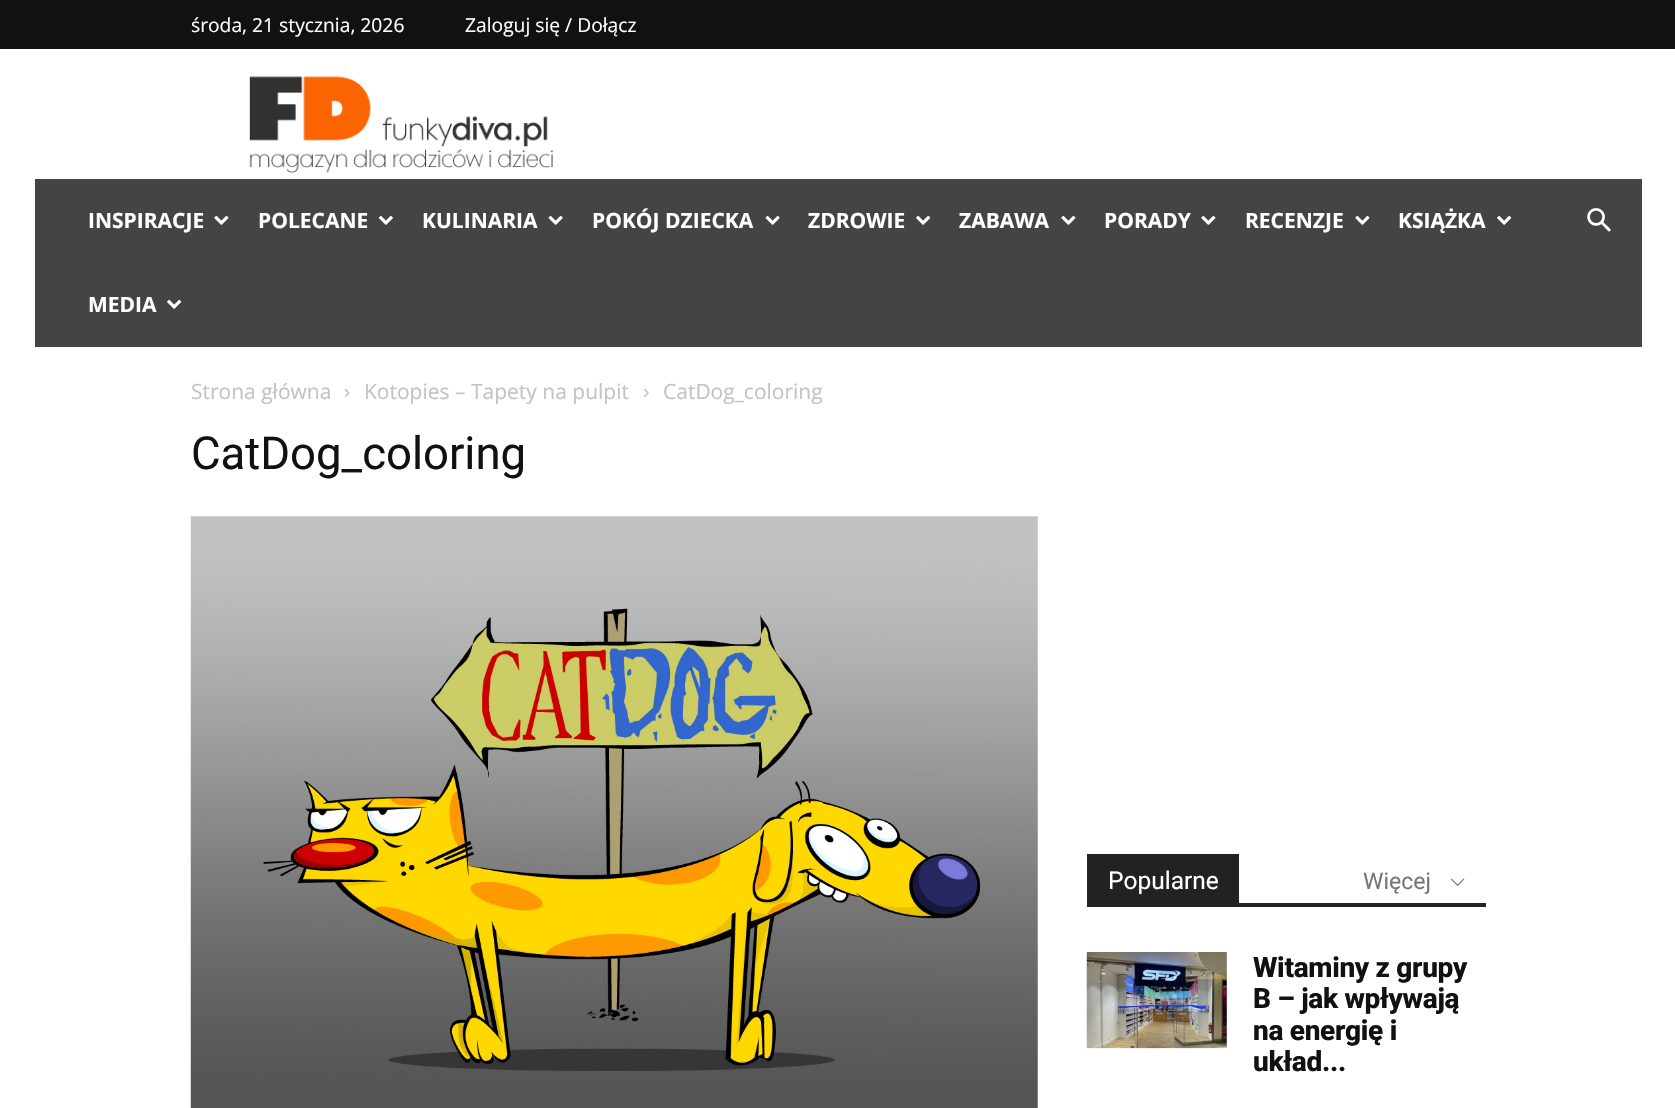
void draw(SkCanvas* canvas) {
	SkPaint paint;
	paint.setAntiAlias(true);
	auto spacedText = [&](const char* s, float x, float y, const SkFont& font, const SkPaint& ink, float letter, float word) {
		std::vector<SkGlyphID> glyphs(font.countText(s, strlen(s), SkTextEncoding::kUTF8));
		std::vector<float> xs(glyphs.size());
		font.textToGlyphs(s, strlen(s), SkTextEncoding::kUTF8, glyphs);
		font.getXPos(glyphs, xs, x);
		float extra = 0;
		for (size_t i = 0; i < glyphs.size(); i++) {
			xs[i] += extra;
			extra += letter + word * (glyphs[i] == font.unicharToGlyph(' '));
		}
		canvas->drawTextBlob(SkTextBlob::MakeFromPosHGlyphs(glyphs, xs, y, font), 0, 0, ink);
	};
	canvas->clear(0xffffffff);
	paint.setColor(0xff111111);
	canvas->drawRect(SkRect::MakeXYWH(0, 0, 1675, 49), paint);
	SkFont f1(fontMgr->matchFamilyStyle("Open Sans", SkFontStyle::Normal()), 19.25);
	f1.setSubpixel(true);
	paint.setColor(0xffffffff);
	canvas->drawString("środa, 21 stycznia, 2026", 191, 32, f1, paint);
	canvas->drawString("Zaloguj się / Dołącz", 465, 32, f1, paint);
	canvas->drawImageRect(SkImages::DeferredFromEncodedData(SkData::MakeFromFileName("img1.png")), SkRect::MakeXYWH(249, 76, 305, 97), SkSamplingOptions());
	paint.setColor(0xff444444);
	canvas->drawRect(SkRect::MakeXYWH(35, 179, 1607, 168), paint);
	SkFont f2(fontMgr->matchFamilyStyle("Open Sans", SkFontStyle::Bold()), 21);
	f2.setSubpixel(true);
	paint.setColor(0xffffffff);
	canvas->drawString("INSPIRACJE", 88, 228, f2, paint);
	canvas->drawImageRect(SkImages::DeferredFromEncodedData(SkData::MakeFromFileName("img2.png")), SkRect::MakeXYWH(214, 215, 15, 10), SkSamplingOptions());
	canvas->drawString("POLECANE", 258, 228, f2, paint);
	canvas->drawImageRect(SkImages::DeferredFromEncodedData(SkData::MakeFromFileName("img3.png")), SkRect::MakeXYWH(378, 215, 15, 10), SkSamplingOptions());
	canvas->drawString("KULINARIA", 422, 228, f2, paint);
	canvas->drawImageRect(SkImages::DeferredFromEncodedData(SkData::MakeFromFileName("img4.png")), SkRect::MakeXYWH(548, 215, 15, 10), SkSamplingOptions());
	canvas->drawString("POKÓJ DZIECKA", 592, 228, f2, paint);
	canvas->drawImageRect(SkImages::DeferredFromEncodedData(SkData::MakeFromFileName("img4.png")), SkRect::MakeXYWH(765, 215, 15, 10), SkSamplingOptions());
	canvas->drawString("ZDROWIE", 808, 228, f2, paint);
	canvas->drawImageRect(SkImages::DeferredFromEncodedData(SkData::MakeFromFileName("img5.png")), SkRect::MakeXYWH(916, 215, 15, 10), SkSamplingOptions());
	canvas->drawString("ZABAWA", 959, 228, f2, paint);
	canvas->drawImageRect(SkImages::DeferredFromEncodedData(SkData::MakeFromFileName("img2.png")), SkRect::MakeXYWH(1061, 215, 15, 10), SkSamplingOptions());
	canvas->drawString("PORADY", 1104, 228, f2, paint);
	canvas->drawImageRect(SkImages::DeferredFromEncodedData(SkData::MakeFromFileName("img2.png")), SkRect::MakeXYWH(1201, 215, 15, 10), SkSamplingOptions());
	canvas->drawString("RECENZJE", 1245, 228, f2, paint);
	canvas->drawImageRect(SkImages::DeferredFromEncodedData(SkData::MakeFromFileName("img2.png")), SkRect::MakeXYWH(1355, 215, 15, 10), SkSamplingOptions());
	canvas->drawString("KSIĄŻKA", 1398, 228, f2, paint);
	canvas->drawImageRect(SkImages::DeferredFromEncodedData(SkData::MakeFromFileName("img5.png")), SkRect::MakeXYWH(1497, 215, 15, 10), SkSamplingOptions());
	canvas->drawString("MEDIA", 88, 312, f2, paint);
	canvas->drawImageRect(SkImages::DeferredFromEncodedData(SkData::MakeFromFileName("img5.png")), SkRect::MakeXYWH(167, 299, 15, 10), SkSamplingOptions());
	canvas->drawImageRect(SkImages::DeferredFromEncodedData(SkData::MakeFromFileName("img6.png")), SkRect::MakeXYWH(1587, 208, 24, 24), SkSamplingOptions());
	SkFont f3(fontMgr->matchFamilyStyle("Open Sans", SkFontStyle::Normal()), 21);
	f3.setSubpixel(true);
	paint.setColor(0xffc3c3c3);
	canvas->drawString("Strona główna", 191, 399, f3, paint);
	canvas->drawImageRect(SkImages::DeferredFromEncodedData(SkData::MakeFromFileName("img7.png")), SkRect::MakeXYWH(344, 389, 6, 8), SkSamplingOptions());
	canvas->drawString("Kotopies – Tapety na pulpit", 364, 399, f3, paint);
	canvas->drawImageRect(SkImages::DeferredFromEncodedData(SkData::MakeFromFileName("img8.png")), SkRect::MakeXYWH(644, 389, 5, 8), SkSamplingOptions());
	canvas->drawString("CatDog_coloring", 663, 399, f3, paint);
	SkFont f4(fontMgr->matchFamilyStyle("Roboto", SkFontStyle::Normal()), 45.5);
	f4.setSubpixel(true);
	paint.setColor(0xff111111);
	canvas->drawString("CatDog_coloring", 191, 469, f4, paint);
	canvas->drawImageRect(SkImages::DeferredFromEncodedData(SkData::MakeFromFileName("img9.png")), SkRect::MakeXYWH(190, 516, 848, 592), SkSamplingOptions());
	paint.setColor(0xff222222);
	canvas->drawRect(SkRect::MakeXYWH(1087, 903, 399, 4), paint);
	canvas->drawRect(SkRect::MakeXYWH(1087, 854, 152, 49), paint);
	SkFont f5(fontMgr->matchFamilyStyle("Roboto", SkFontStyle::Normal()), 24.5);
	f5.setSubpixel(true);
	paint.setColor(0xffffffff);
	canvas->drawString("Popularne", 1108, 889, f5, paint);
	SkFont f6(fontMgr->matchFamilyStyle("Roboto", SkFontStyle::Normal()), 23);
	f6.setSubpixel(true);
	paint.setColor(0xff767676);
	canvas->drawString("Więcej", 1363, 889, f6, paint);
	canvas->drawImageRect(SkImages::DeferredFromEncodedData(SkData::MakeFromFileName("img10.png")), SkRect::MakeXYWH(1450, 878, 15, 8), SkSamplingOptions());
	canvas->drawImageRect(SkImages::DeferredFromEncodedData(SkData::MakeFromFileName("img11.png")), SkRect::MakeXYWH(1086, 952, 141, 97), SkSamplingOptions());
	SkFont f7(fontMgr->matchFamilyStyle("Roboto", SkFontStyle(800, SkFontStyle::kNormal_Width, SkFontStyle::kUpright_Slant)), 28);
	f7.setSubpixel(true);
	paint.setColor(0xff111111);
	spacedText("Witaminy z grupy", 1253, 977, f7, paint, -0.3, 0);
	spacedText("B – jak wpływają", 1253, 1008, f7, paint, -0.3, 0);
	spacedText("na energię i", 1253, 1040, f7, paint, -0.3, 0);
	spacedText("układ...", 1253, 1071, f7, paint, -0.3, 0);
}
